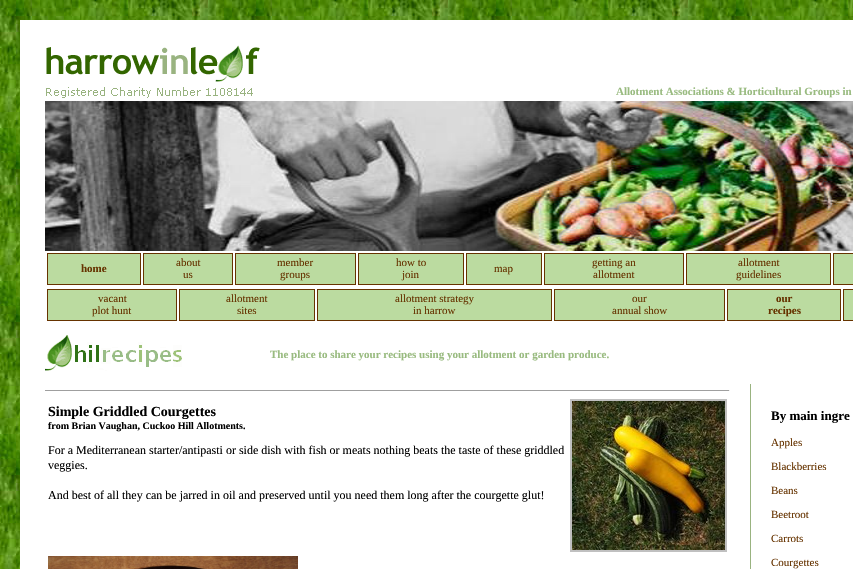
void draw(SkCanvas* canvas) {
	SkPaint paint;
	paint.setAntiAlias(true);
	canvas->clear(0xffffffff);
	canvas->drawImageRect(SkImages::DeferredFromEncodedData(SkData::MakeFromFileName("img1.png")), SkRect::MakeXYWH(0, 0, 853, 569), SkSamplingOptions());
	paint.setColor(0xffffffff);
	canvas->drawRect(SkRect::MakeXYWH(20, 20, 833, 549), paint);
	canvas->drawImageRect(SkImages::DeferredFromEncodedData(SkData::MakeFromFileName("img2.png")), SkRect::MakeXYWH(46, 45, 214, 53), SkSamplingOptions());
	SkFont f1(fontMgr->matchFamilyStyle("Liberation Serif", SkFontStyle::Bold()), 11);
	f1.setSubpixel(true);
	paint.setColor(0xff99bb80);
	canvas->drawString("Allotment Associations & Horticultural Groups in", 616, 95, f1, paint);
	canvas->drawImageRect(SkImages::DeferredFromEncodedData(SkData::MakeFromFileName("img3.png")), SkRect::MakeXYWH(45, 101, 808, 150), SkSamplingOptions());
	paint.setColor(0xffbbdba0);
	canvas->drawRect(SkRect::MakeXYWH(47.5, 253.5, 93, 31), paint);
	paint.setStroke(true);
	paint.setStrokeWidth(1);
	paint.setColor(0xff663300);
	canvas->drawRect(SkRect::MakeXYWH(47.5, 253.5, 93, 31), paint);
	paint.setStroke(false);
	canvas->drawString("home", 81, 272, f1, paint);
	paint.setColor(0xffbbdba0);
	canvas->drawRect(SkRect::MakeXYWH(143.5, 253.5, 89, 31), paint);
	paint.setStroke(true);
	paint.setColor(0xff663300);
	canvas->drawRect(SkRect::MakeXYWH(143.5, 253.5, 89, 31), paint);
	SkFont f2(fontMgr->matchFamilyStyle("Liberation Serif", SkFontStyle::Normal()), 11);
	f2.setSubpixel(true);
	paint.setStroke(false);
	canvas->drawString("about", 176, 266, f2, paint);
	canvas->drawString("us", 183, 278, f2, paint);
	paint.setColor(0xffbbdba0);
	canvas->drawRect(SkRect::MakeXYWH(235.5, 253.5, 120, 31), paint);
	paint.setStroke(true);
	paint.setColor(0xff663300);
	canvas->drawRect(SkRect::MakeXYWH(235.5, 253.5, 120, 31), paint);
	paint.setStroke(false);
	canvas->drawString("member", 277, 266, f2, paint);
	canvas->drawString("groups", 280, 278, f2, paint);
	paint.setColor(0xffbbdba0);
	canvas->drawRect(SkRect::MakeXYWH(358.5, 253.5, 105, 31), paint);
	paint.setStroke(true);
	paint.setColor(0xff663300);
	canvas->drawRect(SkRect::MakeXYWH(358.5, 253.5, 105, 31), paint);
	paint.setStroke(false);
	canvas->drawString("how to", 396, 266, f2, paint);
	canvas->drawString("join", 402, 278, f2, paint);
	paint.setColor(0xffbbdba0);
	canvas->drawRect(SkRect::MakeXYWH(466.5, 253.5, 75, 31), paint);
	paint.setStroke(true);
	paint.setColor(0xff663300);
	canvas->drawRect(SkRect::MakeXYWH(466.5, 253.5, 75, 31), paint);
	paint.setStroke(false);
	canvas->drawString("map", 494, 272, f2, paint);
	paint.setColor(0xffbbdba0);
	canvas->drawRect(SkRect::MakeXYWH(544.5, 253.5, 139, 31), paint);
	paint.setStroke(true);
	paint.setColor(0xff663300);
	canvas->drawRect(SkRect::MakeXYWH(544.5, 253.5, 139, 31), paint);
	paint.setStroke(false);
	canvas->drawString("getting an", 592, 266, f2, paint);
	canvas->drawString("allotment", 593, 278, f2, paint);
	paint.setColor(0xffbbdba0);
	canvas->drawRect(SkRect::MakeXYWH(686.5, 253.5, 144, 31), paint);
	paint.setStroke(true);
	paint.setColor(0xff663300);
	canvas->drawRect(SkRect::MakeXYWH(686.5, 253.5, 144, 31), paint);
	paint.setStroke(false);
	canvas->drawString("allotment", 738, 266, f2, paint);
	canvas->drawString("guidelines", 736, 278, f2, paint);
	paint.setColor(0xffbbdba0);
	canvas->drawRect(SkRect::MakeXYWH(833.5, 253.5, 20, 31), paint);
	paint.setStroke(true);
	paint.setColor(0xff663300);
	canvas->drawRect(SkRect::MakeXYWH(833.5, 253.5, 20, 31), paint);
	paint.setStroke(false);
	paint.setColor(0xffbbdba0);
	canvas->drawRect(SkRect::MakeXYWH(47.5, 289.5, 129, 31), paint);
	paint.setStroke(true);
	paint.setColor(0xff663300);
	canvas->drawRect(SkRect::MakeXYWH(47.5, 289.5, 129, 31), paint);
	paint.setStroke(false);
	canvas->drawString("vacant", 98, 302, f2, paint);
	canvas->drawString("plot hunt", 92, 314, f2, paint);
	paint.setColor(0xffbbdba0);
	canvas->drawRect(SkRect::MakeXYWH(179.5, 289.5, 135, 31), paint);
	paint.setStroke(true);
	paint.setColor(0xff663300);
	canvas->drawRect(SkRect::MakeXYWH(179.5, 289.5, 135, 31), paint);
	paint.setStroke(false);
	canvas->drawString("allotment", 226, 302, f2, paint);
	canvas->drawString("sites", 237, 314, f2, paint);
	paint.setColor(0xffbbdba0);
	canvas->drawRect(SkRect::MakeXYWH(317.5, 289.5, 234, 31), paint);
	paint.setStroke(true);
	paint.setColor(0xff663300);
	canvas->drawRect(SkRect::MakeXYWH(317.5, 289.5, 234, 31), paint);
	paint.setStroke(false);
	canvas->drawString("allotment strategy", 395, 302, f2, paint);
	canvas->drawString("in harrow", 413, 314, f2, paint);
	paint.setColor(0xffbbdba0);
	canvas->drawRect(SkRect::MakeXYWH(554.5, 289.5, 170, 31), paint);
	paint.setStroke(true);
	paint.setColor(0xff663300);
	canvas->drawRect(SkRect::MakeXYWH(554.5, 289.5, 170, 31), paint);
	paint.setStroke(false);
	canvas->drawString("our", 632, 302, f2, paint);
	canvas->drawString("annual show", 612, 314, f2, paint);
	paint.setColor(0xffbbdba0);
	canvas->drawRect(SkRect::MakeXYWH(727.5, 289.5, 113, 31), paint);
	paint.setStroke(true);
	paint.setColor(0xff663300);
	canvas->drawRect(SkRect::MakeXYWH(727.5, 289.5, 113, 31), paint);
	paint.setStroke(false);
	canvas->drawString("our", 776, 302, f1, paint);
	canvas->drawString("recipes", 768, 314, f1, paint);
	paint.setColor(0xffbbdba0);
	canvas->drawRect(SkRect::MakeXYWH(843.5, 289.5, 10, 31), paint);
	paint.setStroke(true);
	paint.setColor(0xff663300);
	canvas->drawRect(SkRect::MakeXYWH(843.5, 289.5, 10, 31), paint);
	canvas->drawImageRect(SkImages::DeferredFromEncodedData(SkData::MakeFromFileName("img4.png")), SkRect::MakeXYWH(45, 335, 137, 36), SkSamplingOptions());
	paint.setStroke(false);
	paint.setColor(0xff99bb80);
	canvas->drawString("The place to share your recipes using your allotment or garden produce.", 270, 358, f1, paint);
	paint.setColor(0xff99b380);
	canvas->drawRect(SkRect::MakeXYWH(750, 384, 1, 185), paint);
	paint.setColor(0xff9f9f9f);
	canvas->drawRect(SkRect::MakeXYWH(45, 390, 685, 1), paint);
	paint.setColor(0xffeeeeee);
	canvas->drawRect(SkRect::MakeXYWH(729, 390, 1, 1), paint);
	SkFont f3(fontMgr->matchFamilyStyle("Liberation Serif", SkFontStyle::Bold()), 14);
	f3.setSubpixel(true);
	paint.setColor(0xff000000);
	canvas->drawString("Simple Griddled Courgettes", 48, 416, f3, paint);
	SkFont f4(fontMgr->matchFamilyStyle("Liberation Serif", SkFontStyle::Bold()), 10);
	f4.setSubpixel(true);
	canvas->drawString("from Brian Vaughan, Cuckoo Hill Allotments.", 48, 429, f4, paint);
	SkFont f5(fontMgr->matchFamilyStyle("Liberation Serif", SkFontStyle::Normal()), 12);
	f5.setSubpixel(true);
	canvas->drawString("For a Mediterranean starter/antipasti or side dish with fish or meats nothing beats the taste of these griddled", 48, 454, f5, paint);
	canvas->drawString("veggies.", 48, 469, f5, paint);
	canvas->drawString("And best of all they can be jarred in oil and preserved until you need them long after the courgette glut!", 48, 499, f5, paint);
	paint.setStroke(true);
	paint.setStrokeWidth(2);
	paint.setColor(0xffc0c0c0);
	canvas->drawRect(SkRect::MakeXYWH(571, 400, 155, 151), paint);
	canvas->drawImageRect(SkImages::DeferredFromEncodedData(SkData::MakeFromFileName("img5.png")), SkRect::MakeXYWH(572, 401, 153, 149), SkSamplingOptions());
	canvas->drawImageRect(SkImages::DeferredFromEncodedData(SkData::MakeFromFileName("img6.png")), SkRect::MakeXYWH(48, 556, 250, 13), SkSamplingOptions());
	SkFont f6(fontMgr->matchFamilyStyle("Liberation Serif", SkFontStyle::Bold()), 13);
	f6.setSubpixel(true);
	paint.setStroke(false);
	paint.setColor(0xff000000);
	canvas->drawString("By main ingre", 771, 420, f6, paint);
	paint.setColor(0xff663300);
	canvas->drawString("Apples", 771, 446, f2, paint);
	canvas->drawString("Blackberries", 771, 470, f2, paint);
	canvas->drawString("Beans", 771, 494, f2, paint);
	canvas->drawString("Beetroot", 771, 518, f2, paint);
	canvas->drawString("Carrots", 771, 542, f2, paint);
	canvas->drawString("Courgettes", 771, 566, f2, paint);
}
